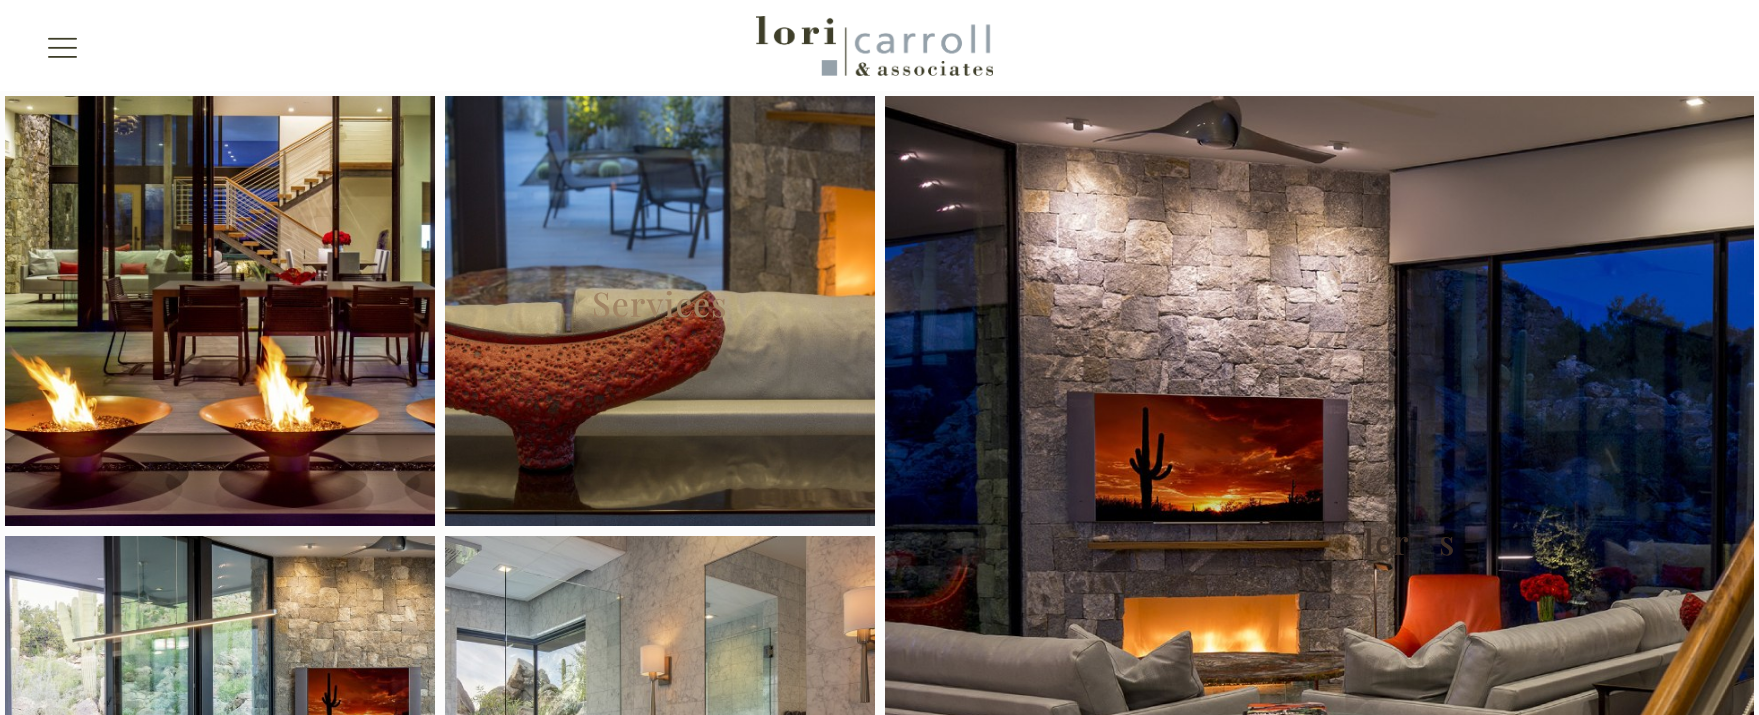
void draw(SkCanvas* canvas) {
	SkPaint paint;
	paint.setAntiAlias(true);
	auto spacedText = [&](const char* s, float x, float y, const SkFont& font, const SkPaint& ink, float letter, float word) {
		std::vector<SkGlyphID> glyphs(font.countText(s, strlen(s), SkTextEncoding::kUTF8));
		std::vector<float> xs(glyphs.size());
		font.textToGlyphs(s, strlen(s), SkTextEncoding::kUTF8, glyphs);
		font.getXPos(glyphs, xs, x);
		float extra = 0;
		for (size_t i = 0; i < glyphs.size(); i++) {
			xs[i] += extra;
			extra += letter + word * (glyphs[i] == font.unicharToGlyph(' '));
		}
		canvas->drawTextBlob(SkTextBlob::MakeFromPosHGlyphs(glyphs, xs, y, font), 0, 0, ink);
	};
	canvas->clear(0xfffcfcfc);
	paint.setColor(0xffffffff);
	canvas->drawRect(SkRect::MakeXYWH(0, 0, 1759, 91), paint);
	canvas->drawImageRect(SkImages::DeferredFromEncodedData(SkData::MakeFromFileName("img1.png")), SkRect::MakeXYWH(48, 37, 29, 21), SkSamplingOptions());
	canvas->drawImageRect(SkImages::DeferredFromEncodedData(SkData::MakeFromFileName("img2.png")), SkRect::MakeXYWH(756, 16, 237, 60), SkSamplingOptions());
	canvas->drawImageRect(SkImages::DeferredFromEncodedData(SkData::MakeFromFileName("img3.png")), SkRect::MakeXYWH(5, 96, 430, 430), SkSamplingOptions());
	canvas->drawImageRect(SkImages::DeferredFromEncodedData(SkData::MakeFromFileName("img4.png")), SkRect::MakeXYWH(445, 96, 430, 430), SkSamplingOptions());
	SkFont f1(fontMgr->matchFamilyStyle("Playfair Display", SkFontStyle(500, SkFontStyle::kNormal_Width, SkFontStyle::kUpright_Slant)), 34);
	f1.setSubpixel(true);
	paint.setColor(0xffa18464);
	spacedText("Services", 592, 317, f1, paint, 1, 0);
	canvas->drawImageRect(SkImages::DeferredFromEncodedData(SkData::MakeFromFileName("img5.png")), SkRect::MakeXYWH(5, 536, 430, 179), SkSamplingOptions());
	canvas->drawImageRect(SkImages::DeferredFromEncodedData(SkData::MakeFromFileName("img6.png")), SkRect::MakeXYWH(445, 536, 430, 179), SkSamplingOptions());
	canvas->drawImageRect(SkImages::DeferredFromEncodedData(SkData::MakeFromFileName("img7.png")), SkRect::MakeXYWH(885, 96, 869, 619), SkSamplingOptions());
	paint.setColor(0xff3e2f26);
	spacedText("ler", 1364, 555, f1, paint, 1, 0);
	spacedText("s", 1439, 555, f1, paint, 1, 0);
}
